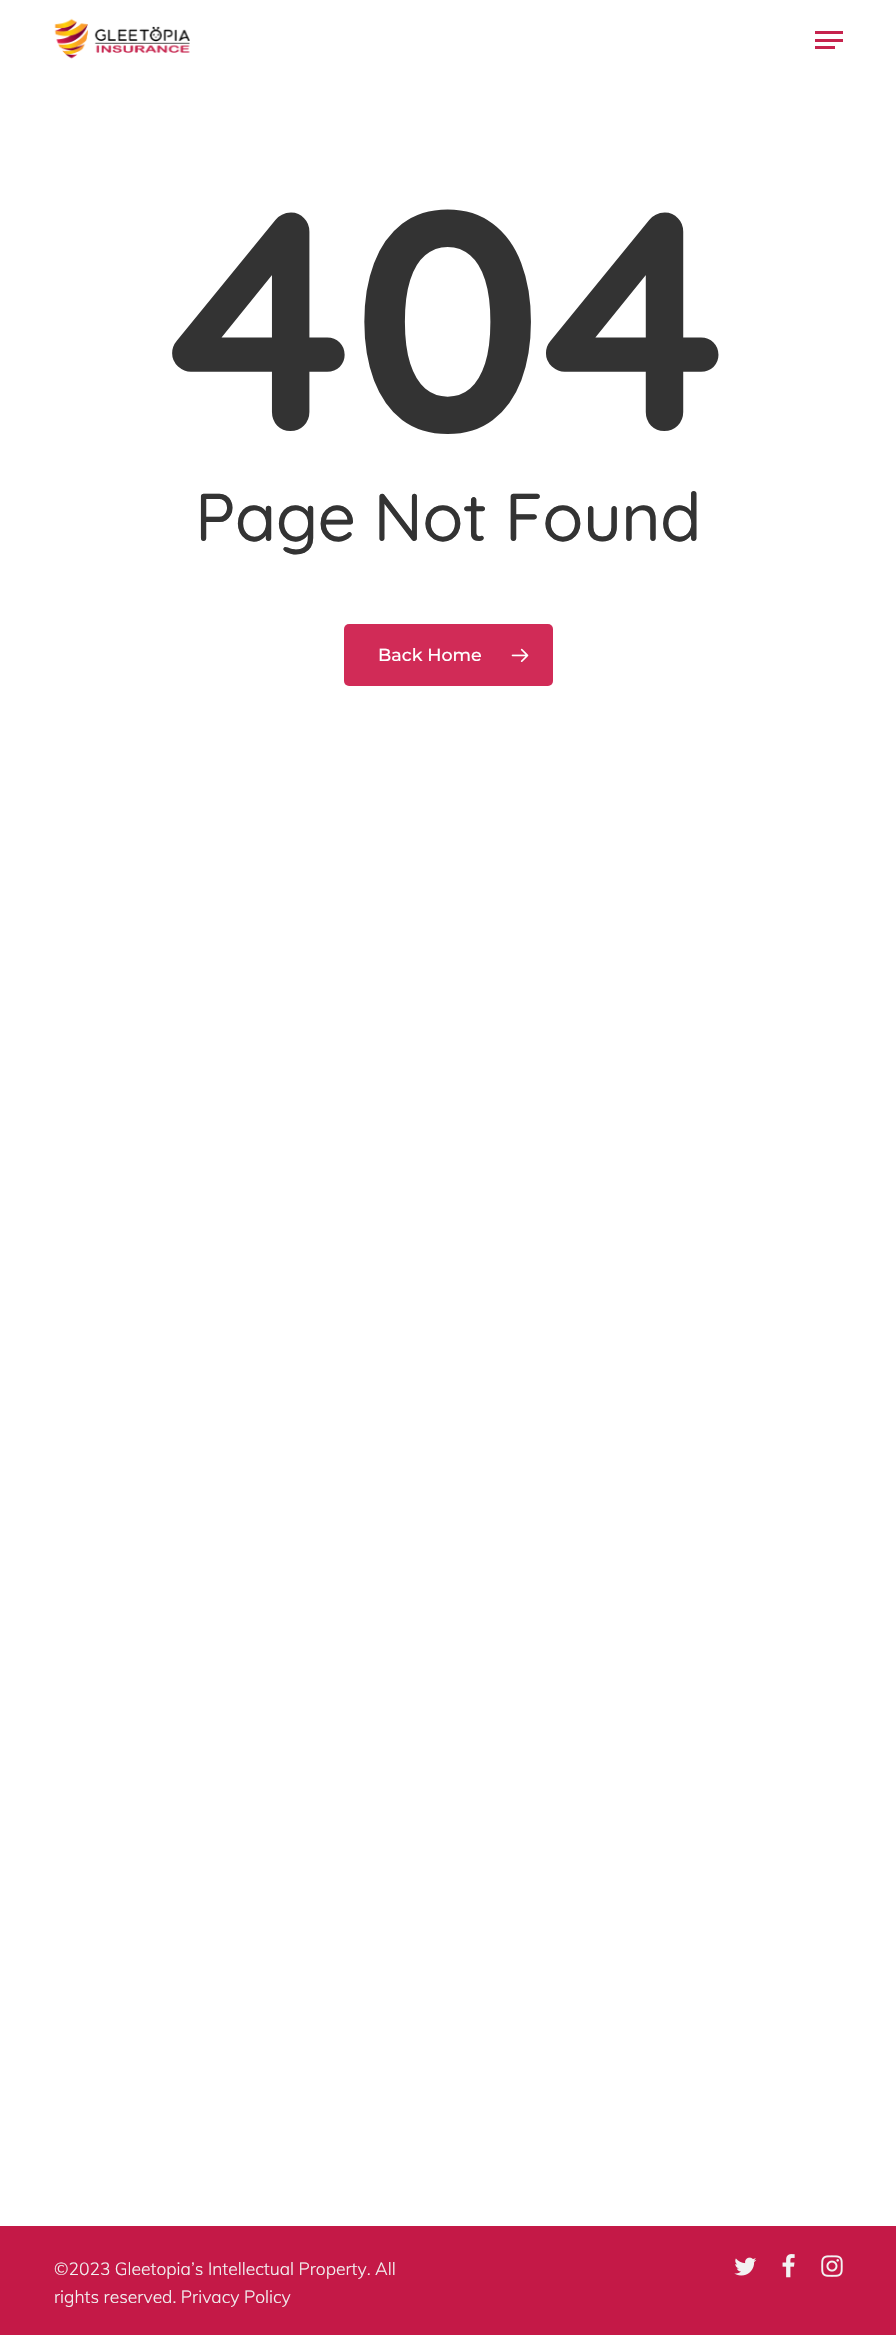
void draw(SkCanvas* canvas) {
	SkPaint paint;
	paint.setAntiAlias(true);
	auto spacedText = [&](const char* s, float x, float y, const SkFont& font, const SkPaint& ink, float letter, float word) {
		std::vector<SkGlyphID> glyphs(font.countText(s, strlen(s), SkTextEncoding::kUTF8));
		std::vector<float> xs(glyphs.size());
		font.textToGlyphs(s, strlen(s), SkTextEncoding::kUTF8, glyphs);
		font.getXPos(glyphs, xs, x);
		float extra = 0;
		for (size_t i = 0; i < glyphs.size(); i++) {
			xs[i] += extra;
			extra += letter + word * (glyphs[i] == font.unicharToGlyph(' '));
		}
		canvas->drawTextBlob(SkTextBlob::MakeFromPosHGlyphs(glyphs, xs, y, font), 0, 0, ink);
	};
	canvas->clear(0xffffffff);
	canvas->drawImageRect(SkImages::DeferredFromEncodedData(SkData::MakeFromFileName("img1.png")), SkRect::MakeXYWH(54, 18, 136, 41), SkSamplingOptions());
	paint.setColor(0xffc6234d);
	canvas->drawRect(SkRect::MakeXYWH(815, 31, 28, 3), paint);
	canvas->drawRect(SkRect::MakeXYWH(815, 46, 20, 3), paint);
	canvas->drawRect(SkRect::MakeXYWH(815, 39, 28, 3), paint);
	SkFont f1(fontMgr->matchFamilyStyle("Quicksand", SkFontStyle::Bold()), 312);
	f1.setSubpixel(true);
	paint.setColor(0xff333333);
	spacedText("404", 169, 431, f1, paint, -0.6, 0);
	SkFont f2(fontMgr->matchFamilyStyle("Quicksand", SkFontStyle(500, SkFontStyle::kNormal_Width, SkFontStyle::kUpright_Slant)), 67.5);
	f2.setSubpixel(true);
	spacedText("Page Not Found", 195, 541, f2, paint, -0.6, 0);
	paint.setColor(0xffd12b57);
	canvas->drawRoundRect(SkRect::MakeXYWH(344, 624, 209, 62), 5, 5, paint);
	SkFont f3(fontMgr->matchFamilyStyle("Montserrat", SkFontStyle(500, SkFontStyle::kNormal_Width, SkFontStyle::kUpright_Slant)), 17.5);
	f3.setSubpixel(true);
	paint.setColor(0xffffffff);
	canvas->drawString("Back Home", 378, 661, f3, paint);
	canvas->drawImageRect(SkImages::DeferredFromEncodedData(SkData::MakeFromFileName("img2.png")), SkRect::MakeXYWH(511, 648, 18, 14), SkSamplingOptions());
	paint.setColor(0xffc41947);
	canvas->drawRect(SkRect::MakeXYWH(0, 2226, 896, 109), paint);
	SkFont f4(fontMgr->matchFamilyStyle("Muli", SkFontStyle(300, SkFontStyle::kNormal_Width, SkFontStyle::kUpright_Slant)), 17.5);
	f4.setSubpixel(true);
	paint.setColor(0xfff2f2f2);
	canvas->drawString("©2023 Gleetopia’s Intellectual Property. All", 54, 2275, f4, paint);
	canvas->drawString("rights reserved. Privacy Policy", 54, 2303, f4, paint);
	canvas->drawImageRect(SkImages::DeferredFromEncodedData(SkData::MakeFromFileName("img3.png")), SkRect::MakeXYWH(734, 2257, 23, 19), SkSamplingOptions());
	canvas->drawImageRect(SkImages::DeferredFromEncodedData(SkData::MakeFromFileName("img4.png")), SkRect::MakeXYWH(782, 2254, 13, 24), SkSamplingOptions());
	canvas->drawImageRect(SkImages::DeferredFromEncodedData(SkData::MakeFromFileName("img5.png")), SkRect::MakeXYWH(821, 2255, 22, 22), SkSamplingOptions());
}
